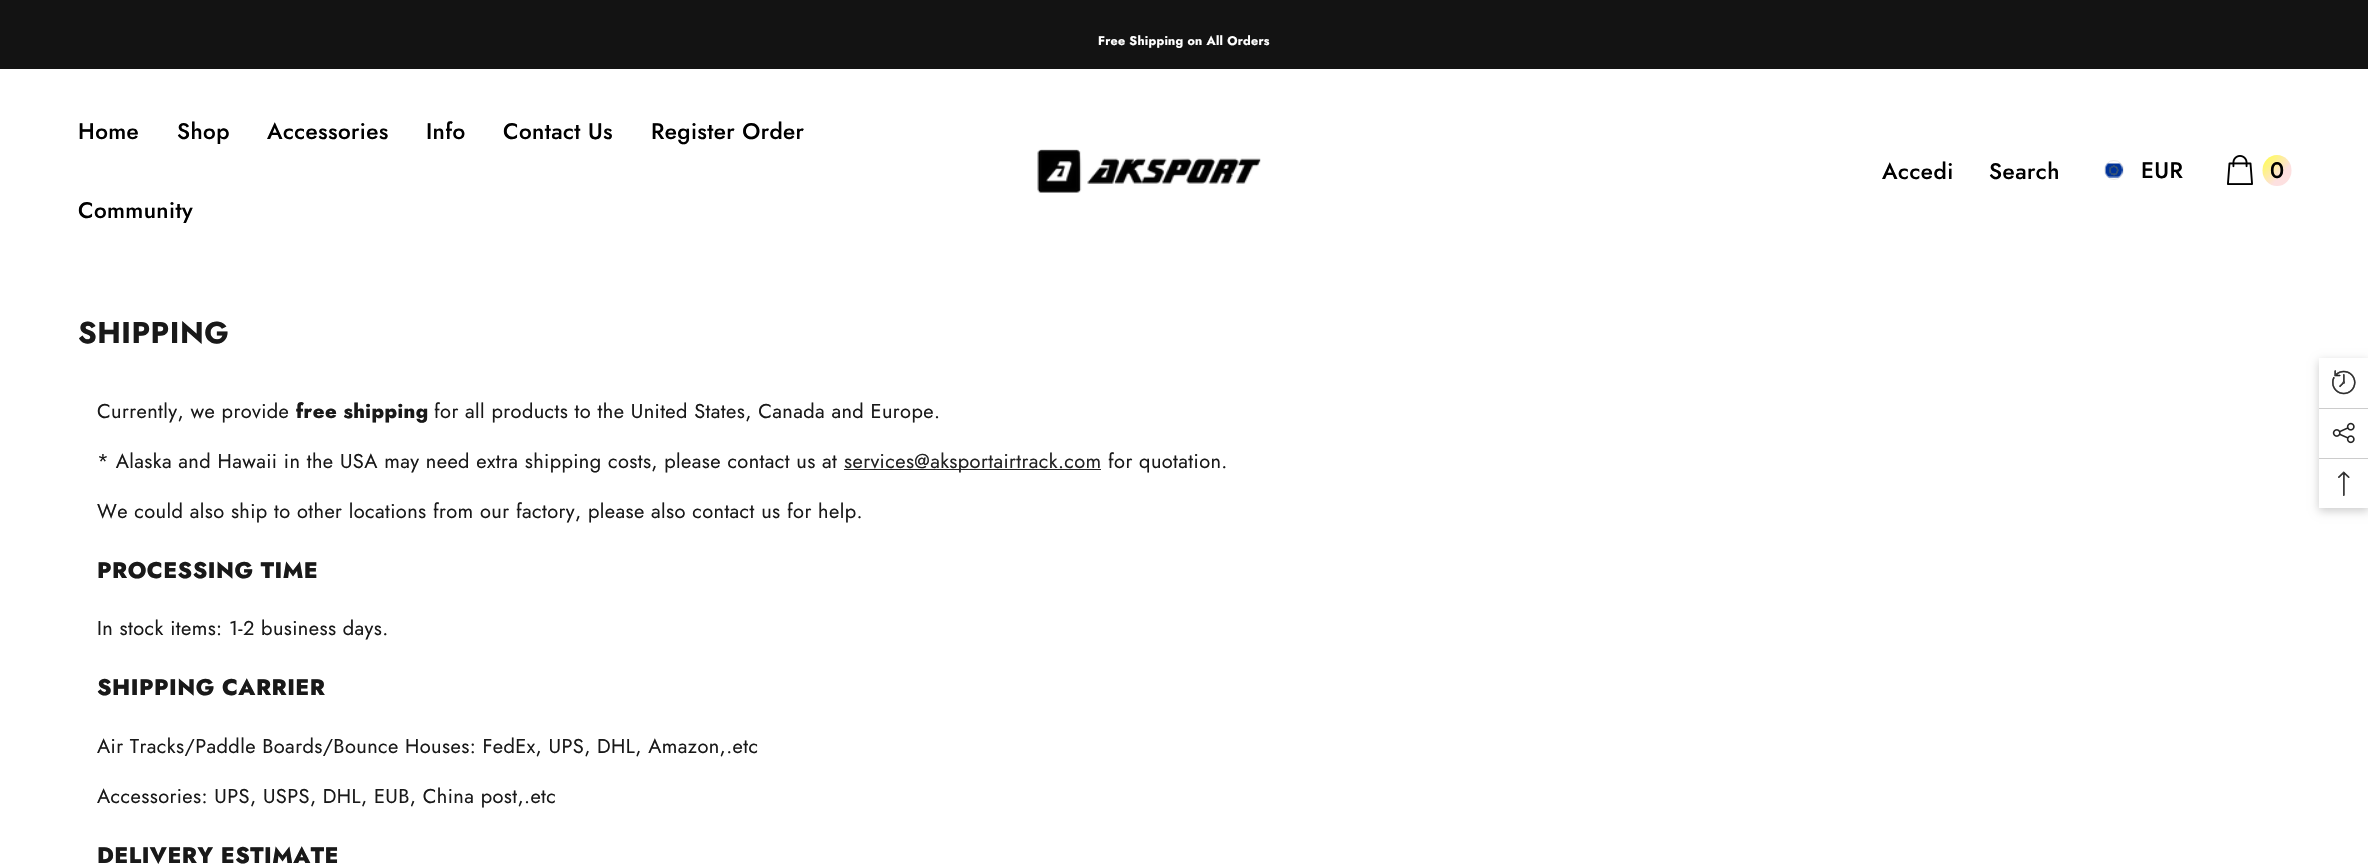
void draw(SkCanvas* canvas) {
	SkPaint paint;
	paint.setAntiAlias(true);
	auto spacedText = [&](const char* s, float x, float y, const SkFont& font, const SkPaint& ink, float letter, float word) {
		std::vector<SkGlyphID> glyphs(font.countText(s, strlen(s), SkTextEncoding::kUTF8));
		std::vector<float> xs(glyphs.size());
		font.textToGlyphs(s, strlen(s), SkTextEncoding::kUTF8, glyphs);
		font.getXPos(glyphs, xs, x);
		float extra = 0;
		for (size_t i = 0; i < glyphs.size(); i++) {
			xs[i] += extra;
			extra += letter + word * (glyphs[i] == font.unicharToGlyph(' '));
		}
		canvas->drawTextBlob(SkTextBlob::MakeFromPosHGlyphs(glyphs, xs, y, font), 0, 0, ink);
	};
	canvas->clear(0xffffffff);
	paint.setColor(0xff131313);
	canvas->drawRect(SkRect::MakeXYWH(0, 0, 2368, 69), paint);
	SkFont f1(fontMgr->matchFamilyStyle("Jost", SkFontStyle::Bold()), 12.5);
	f1.setSubpixel(true);
	paint.setColor(0xffffffff);
	spacedText("Free Shipping on All Orders", 1098, 45, f1, paint, 0.25, 0);
	SkFont f2(fontMgr->matchFamilyStyle("Jost", SkFontStyle(500, SkFontStyle::kNormal_Width, SkFontStyle::kUpright_Slant)), 22.5);
	f2.setSubpixel(true);
	paint.setColor(0xff000000);
	spacedText("Home", 78, 139, f2, paint, 0.4, 0);
	spacedText("Shop", 177, 139, f2, paint, 0.4, 0);
	spacedText("Accessories", 267, 139, f2, paint, 0.4, 0);
	spacedText("Info", 426, 139, f2, paint, 0.4, 0);
	spacedText("Contact Us", 503, 139, f2, paint, 0.4, 0);
	spacedText("Register Order", 651, 139, f2, paint, 0.4, 0);
	spacedText("Community", 78, 218, f2, paint, 0.4, 0);
	canvas->drawImageRect(SkImages::DeferredFromEncodedData(SkData::MakeFromFileName("img1.png")), SkRect::MakeXYWH(1037, 149, 224, 44), SkSamplingOptions());
	spacedText("Accedi", 1882, 179, f2, paint, 0.5, 0);
	spacedText("Search", 1989, 179, f2, paint, 0.5, 0);
	paint.setStroke(true);
	paint.setStrokeWidth(1);
	paint.setColor(0xffe9e9e9);
	canvas->drawCircle(2114, 170, 9.5, paint);
	canvas->drawImageRect(SkImages::DeferredFromEncodedData(SkData::MakeFromFileName("img2.png")), SkRect::MakeXYWH(2105, 163, 18, 15), SkSamplingOptions());
	paint.setStroke(false);
	paint.setColor(0xff000000);
	spacedText("EUR", 2141, 178, f2, paint, 0.4, 0);
	canvas->drawImageRect(SkImages::DeferredFromEncodedData(SkData::MakeFromFileName("img3.png")), SkRect::MakeXYWH(2227, 155, 26, 30), SkSamplingOptions());
	{
		const SkColor colors[] = {0xfffde0e0, 0xfffffa63};
		const float stops[] = {0.34, 0.85};
		const SkPoint ends[] = {{2292, 185}, {2261, 156}};
		paint.setShader(SkGradientShader::MakeLinear(ends, colors, stops, 2, SkTileMode::kClamp));
		paint.setAlpha(255);
	}
	canvas->drawOval(SkRect::MakeXYWH(2262.5, 155, 29, 31), paint);
	paint.setShader(nullptr);
	paint.setColor(0xff000000);
	spacedText("0", 2270, 178, f2, paint, 0.5, 0);
	SkFont f3(fontMgr->matchFamilyStyle("Jost", SkFontStyle::Bold()), 30);
	f3.setSubpixel(true);
	paint.setColor(0xff191919);
	spacedText("SHIPPING", 78, 343, f3, paint, 0.5, 0);
	SkFont f4(fontMgr->matchFamilyStyle("Jost", SkFontStyle::Normal()), 20);
	f4.setSubpixel(true);
	spacedText("Currently, we provide", 97, 418, f4, paint, 0.4, 0);
	SkFont f5(fontMgr->matchFamilyStyle("Jost", SkFontStyle(800, SkFontStyle::kNormal_Width, SkFontStyle::kUpright_Slant)), 20);
	f5.setSubpixel(true);
	spacedText("free shipping", 296, 418, f5, paint, 0.4, 0);
	spacedText("for all products to the United States, Canada and Europe.", 434, 418, f4, paint, 0.4, 0);
	spacedText("* Alaska and Hawaii in the USA may need extra shipping costs, please contact us at", 97, 468, f4, paint, 0.4, 0);
	paint.setColor(0xff232323);
	canvas->drawRect(SkRect::MakeXYWH(844, 469, 257, 1), paint);
	spacedText("services@aksportairtrack.com", 844, 468, f4, paint, 0.4, 0);
	paint.setColor(0xff191919);
	spacedText("for quotation.", 1108, 468, f4, paint, 0.4, 0);
	spacedText("We could also ship to other locations from our factory, please also contact us for help.", 97, 518, f4, paint, 0.4, 0);
	SkFont f6(fontMgr->matchFamilyStyle("Jost", SkFontStyle(800, SkFontStyle::kNormal_Width, SkFontStyle::kUpright_Slant)), 22.5);
	f6.setSubpixel(true);
	spacedText("PROCESSING TIME", 97, 578, f6, paint, 0.5, 0);
	spacedText("In stock items: 1-2 business days.", 97, 635, f4, paint, 0.4, 0);
	spacedText("SHIPPING CARRIER", 97, 695, f6, paint, 0.5, 0);
	spacedText("Air Tracks/Paddle Boards/Bounce Houses: FedEx, UPS, DHL, Amazon,.etc", 97, 753, f4, paint, 0.4, 0);
	spacedText("Accessories: UPS, USPS, DHL, EUB, China post,.etc", 97, 803, f4, paint, 0.4, 0);
	spacedText("DELIVERY ESTIMATE", 97, 863, f6, paint, 0.5, 0);
	paint.setColor(0x33000000);
	paint.setMaskFilter(SkMaskFilter::MakeBlur(kNormal_SkBlurStyle, 4.5));
	canvas->drawRect(SkRect::MakeXYWH(2319, 361, 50, 150), paint);
	paint.setMaskFilter(nullptr);
	paint.setColor(0xffffffff);
	canvas->drawRect(SkRect::MakeXYWH(2319, 358, 49, 150), paint);
	canvas->drawImageRect(SkImages::DeferredFromEncodedData(SkData::MakeFromFileName("img4.png")), SkRect::MakeXYWH(2332, 370, 24, 25), SkSamplingOptions());
	paint.setColor(0xffcccccc);
	canvas->drawRect(SkRect::MakeXYWH(2319, 408, 49, 1), paint);
	canvas->drawImageRect(SkImages::DeferredFromEncodedData(SkData::MakeFromFileName("img5.png")), SkRect::MakeXYWH(2332, 422, 23, 22), SkSamplingOptions());
	canvas->drawRect(SkRect::MakeXYWH(2319, 458, 49, 1), paint);
	canvas->drawImageRect(SkImages::DeferredFromEncodedData(SkData::MakeFromFileName("img6.png")), SkRect::MakeXYWH(2338, 471, 12, 25), SkSamplingOptions());
}
